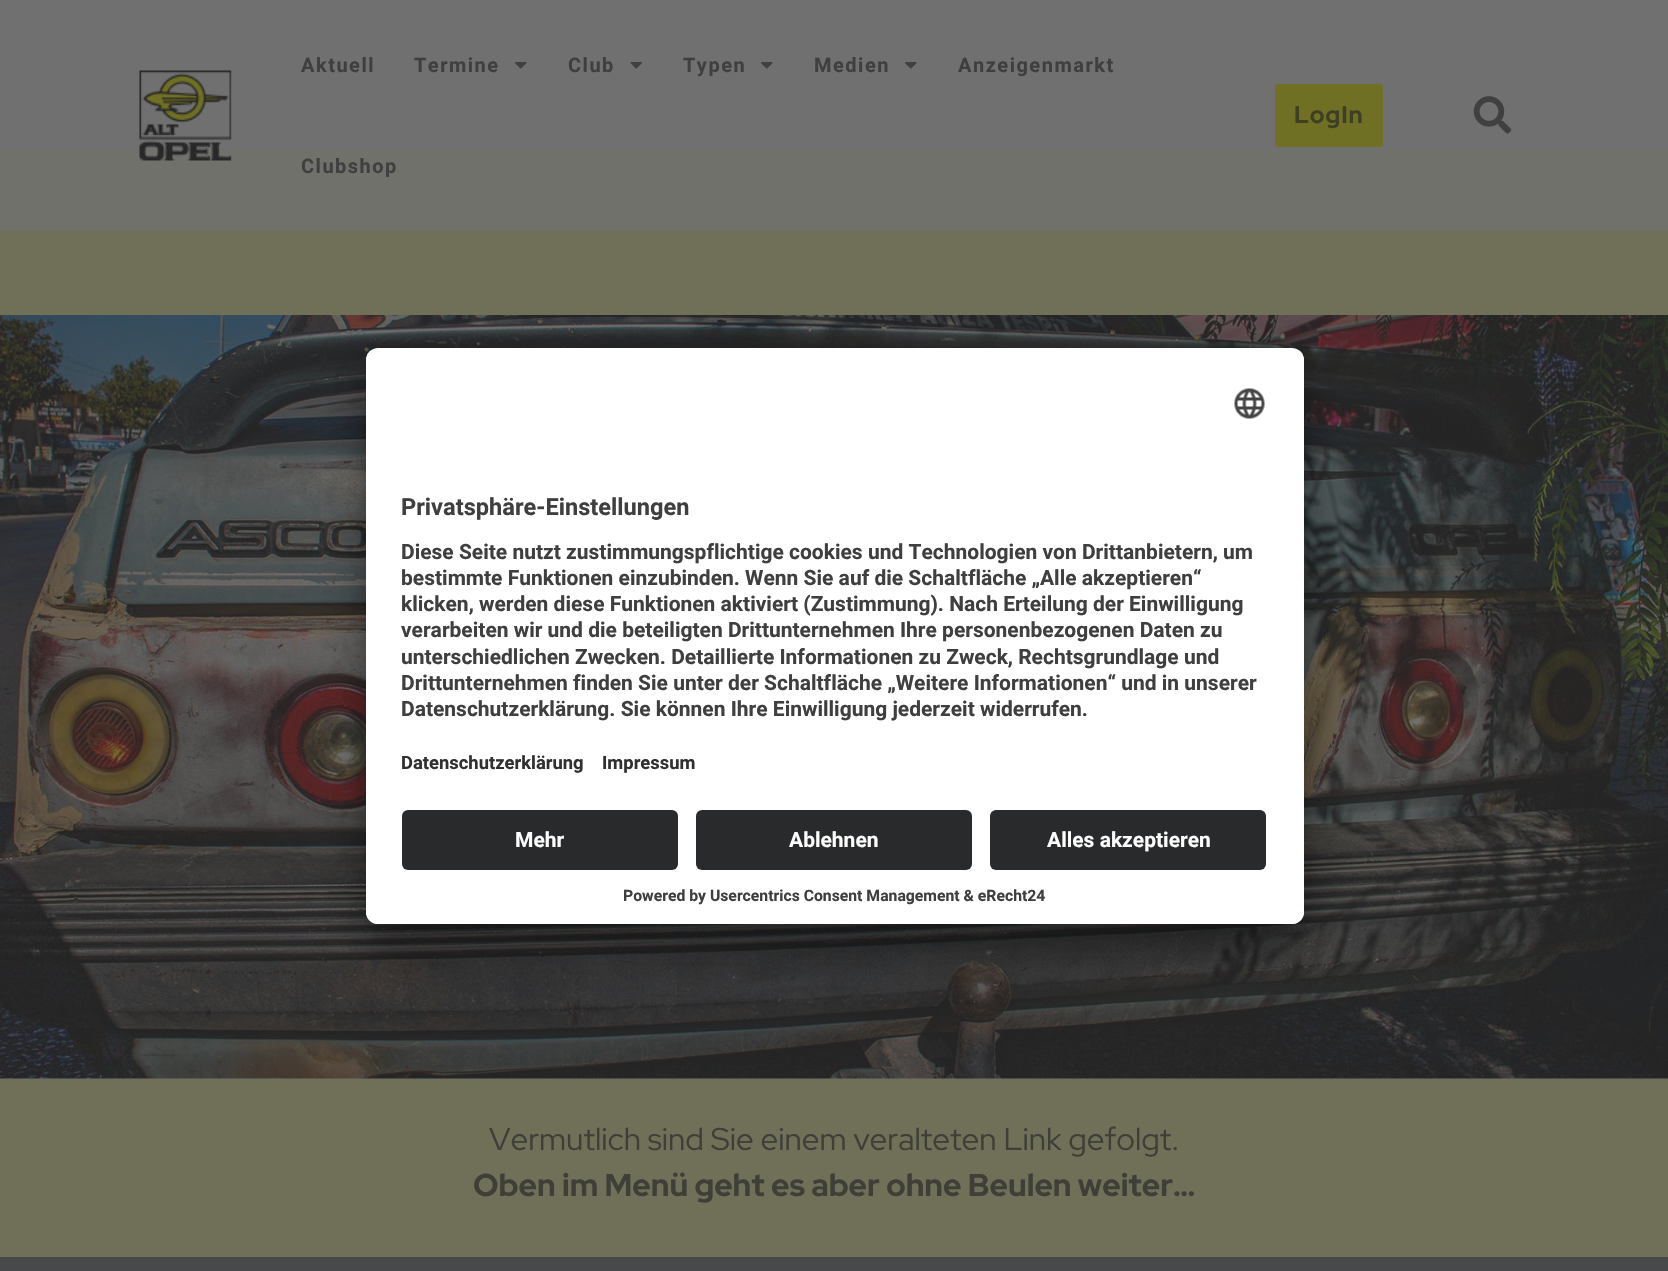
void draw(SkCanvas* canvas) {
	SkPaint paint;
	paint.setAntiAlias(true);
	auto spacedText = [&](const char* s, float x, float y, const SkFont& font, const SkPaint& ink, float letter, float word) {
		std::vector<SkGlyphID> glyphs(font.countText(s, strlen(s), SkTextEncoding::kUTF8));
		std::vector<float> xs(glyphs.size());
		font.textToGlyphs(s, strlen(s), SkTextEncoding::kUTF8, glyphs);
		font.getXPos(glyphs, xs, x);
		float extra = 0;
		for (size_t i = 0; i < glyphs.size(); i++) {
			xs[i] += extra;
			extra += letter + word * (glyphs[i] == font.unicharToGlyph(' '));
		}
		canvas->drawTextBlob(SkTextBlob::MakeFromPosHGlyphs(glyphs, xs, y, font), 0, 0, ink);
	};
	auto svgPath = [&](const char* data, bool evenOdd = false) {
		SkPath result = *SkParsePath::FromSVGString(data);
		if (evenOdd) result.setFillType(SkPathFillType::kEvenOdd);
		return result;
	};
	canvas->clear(0xff707070);
	paint.setColor(0xff707059);
	canvas->drawRect(SkRect::MakeXYWH(0, 150, 1668, 165), paint);
	paint.setColor(0xcc707070);
	canvas->drawRect(SkRect::MakeXYWH(0, 150, 1668, 81), paint);
	canvas->drawImageRect(SkImages::DeferredFromEncodedData(SkData::MakeFromFileName("img1.png")), SkRect::MakeXYWH(139, 70, 93, 91), SkSamplingOptions());
	SkFont f1(fontMgr->matchFamilyStyle("Roboto", SkFontStyle::Bold()), 20);
	f1.setSubpixel(true);
	paint.setColor(0xff3f3f3f);
	spacedText("Aktuell", 301, 72, f1, paint, 1.5, 0);
	spacedText("Termine", 414, 72, f1, paint, 1.5, 0);
	canvas->drawImageRect(SkImages::DeferredFromEncodedData(SkData::MakeFromFileName("img2.png")), SkRect::MakeXYWH(515, 62, 12, 7), SkSamplingOptions());
	spacedText("Club", 568, 72, f1, paint, 1.5, 0);
	canvas->drawImageRect(SkImages::DeferredFromEncodedData(SkData::MakeFromFileName("img3.png")), SkRect::MakeXYWH(630, 62, 12, 7), SkSamplingOptions());
	spacedText("Typen", 683, 72, f1, paint, 1.5, 0);
	canvas->drawImageRect(SkImages::DeferredFromEncodedData(SkData::MakeFromFileName("img2.png")), SkRect::MakeXYWH(761, 62, 12, 7), SkSamplingOptions());
	spacedText("Medien", 814, 72, f1, paint, 1.5, 0);
	canvas->drawImageRect(SkImages::DeferredFromEncodedData(SkData::MakeFromFileName("img2.png")), SkRect::MakeXYWH(905, 62, 12, 7), SkSamplingOptions());
	spacedText("Anzeigenmarkt", 958, 72, f1, paint, 1.5, 0);
	spacedText("Clubshop", 301, 173, f1, paint, 1.5, 0);
	paint.setColor(0xff707024);
	canvas->drawRoundRect(SkRect::MakeXYWH(1275, 84, 108, 63), 3, 3, paint);
	SkFont f2(fontMgr->matchFamilyStyle("Red Hat Display", SkFontStyle::Bold()), 24);
	f2.setSubpixel(true);
	paint.setColor(0xff3f3f24);
	spacedText("LogIn", 1294, 123, f2, paint, 0.75, 0);
	canvas->drawImageRect(SkImages::DeferredFromEncodedData(SkData::MakeFromFileName("img4.png")), SkRect::MakeXYWH(1473, 96, 39, 38), SkSamplingOptions());
	canvas->drawImageRect(SkImages::DeferredFromEncodedData(SkData::MakeFromFileName("img6.png")), SkRect::MakeXYWH(0, 315, 1668, 764), SkSamplingOptions());
	paint.setColor(0x4d000000);
	paint.setMaskFilter(SkMaskFilter::MakeBlur(kNormal_SkBlurStyle, 21));
	canvas->drawRoundRect(SkRect::MakeXYWH(366, 378, 938, 576), 12, 12, paint);
	paint.setMaskFilter(nullptr);
	paint.setColor(0x38000000);
	paint.setMaskFilter(SkMaskFilter::MakeBlur(kNormal_SkBlurStyle, 19.5));
	canvas->drawRoundRect(SkRect::MakeXYWH(366, 356, 938, 576), 12, 12, paint);
	paint.setMaskFilter(nullptr);
	paint.setColor(0xffffffff);
	canvas->drawRoundRect(SkRect::MakeXYWH(366, 348, 938, 576), 12, 12, paint);
	canvas->save();
	canvas->clipPath(svgPath("M378 348H1292C1298.5 348 1304 353.5 1304 360V912C1304 918.5 1298.5 924 1292 924H378C371.5 924 366 918.5 366 912V360C366 353.5 371.5 348 378 348Z"), true);
	canvas->clipPath(svgPath("M378 348H1292C1298.5 348 1304 353.5 1304 360V798H366V360C366 353.5 371.5 348 378 348Z"), true);
	canvas->drawRect(SkRect::MakeXYWH(366, 350, 938, 448), paint);
	canvas->restore();
	canvas->drawImageRect(SkImages::DeferredFromEncodedData(SkData::MakeFromFileName("img5.png")), SkRect::MakeXYWH(1234, 388, 31, 31), SkSamplingOptions());
	SkFont f3(fontMgr->matchFamilyStyle("Roboto", SkFontStyle::Bold()), 23.6);
	f3.setSubpixel(true);
	paint.setColor(0xff3f3f3f);
	canvas->drawString("Privatsphäre-Einstellungen", 401, 515, f3, paint);
	SkFont f4(fontMgr->matchFamilyStyle("Roboto", SkFontStyle::Bold()), 21);
	f4.setSubpixel(true);
	canvas->drawString("Diese Seite nutzt zustimmungspflichtige cookies und Technologien von Drittanbietern, um", 401, 559, f4, paint);
	canvas->drawString("bestimmte Funktionen einzubinden. Wenn Sie auf die Schaltfläche „Alle akzeptieren“", 401, 585, f4, paint);
	canvas->drawString("klicken, werden diese Funktionen aktiviert (Zustimmung). Nach Erteilung der Einwilligung", 401, 611, f4, paint);
	canvas->drawString("verarbeiten wir und die beteiligten Drittunternehmen Ihre personenbezogenen Daten zu", 401, 637, f4, paint);
	canvas->drawString("unterschiedlichen Zwecken. Detaillierte Informationen zu Zweck, Rechtsgrundlage und", 401, 664, f4, paint);
	canvas->drawString("Drittunternehmen finden Sie unter der Schaltfläche „Weitere Informationen“ und in unserer", 401, 690, f4, paint);
	canvas->drawString("Datenschutzerklärung. Sie können Ihre Einwilligung jederzeit widerrufen.", 401, 716, f4, paint);
	SkFont f5(fontMgr->matchFamilyStyle("Roboto", SkFontStyle::Bold()), 18.4);
	f5.setSubpixel(true);
	paint.setColor(0xff303030);
	canvas->drawString("Datenschutzerklärung", 401, 769, f5, paint);
	canvas->drawString("Impressum", 602, 769, f5, paint);
	paint.setColor(0xffffffff);
	canvas->drawPath(svgPath("M366 798H1304V912C1304 918.5 1298.5 924 1292 924H378C371.5 924 366 918.5 366 912Z"), paint);
	paint.setColor(0xff292a2b);
	canvas->drawRoundRect(SkRect::MakeXYWH(402, 810, 276, 60), 6, 6, paint);
	paint.setColor(0xffffffff);
	canvas->drawString("Mehr", 515, 847, f4, paint);
	paint.setColor(0xff292a2b);
	canvas->drawRoundRect(SkRect::MakeXYWH(696, 810, 276, 60), 6, 6, paint);
	paint.setColor(0xffffffff);
	canvas->drawString("Ablehnen", 789, 847, f4, paint);
	paint.setColor(0xff292a2b);
	canvas->drawRoundRect(SkRect::MakeXYWH(990, 810, 276, 60), 6, 6, paint);
	paint.setColor(0xffffffff);
	canvas->drawString("Alles akzeptieren", 1047, 847, f4, paint);
	SkFont f6(fontMgr->matchFamilyStyle("Roboto", SkFontStyle::Bold()), 15.75);
	f6.setSubpixel(true);
	paint.setColor(0xff3f3f3f);
	canvas->drawString("Powered by Usercentrics Consent Management & eRecht24", 623, 901, f6, paint);
	paint.setColor(0xff707059);
	canvas->drawRect(SkRect::MakeXYWH(0, 1079, 1668, 178), paint);
	SkFont f7(fontMgr->matchFamilyStyle("Red Hat Display", SkFontStyle::Normal()), 31.5);
	f7.setSubpixel(true);
	paint.setColor(0xff3f3f37);
	canvas->drawString("Vermutlich sind Sie einem veralteten Link gefolgt.", 489, 1150, f7, paint);
	SkFont f8(fontMgr->matchFamilyStyle("Red Hat Display", SkFontStyle::Bold()), 31.5);
	f8.setSubpixel(true);
	canvas->drawString("Oben im Menü geht es aber ohne Beulen weiter…", 473, 1196, f8, paint);
	paint.setColor(0xff47494a);
	canvas->drawRect(SkRect::MakeXYWH(0, 1257, 1668, 14), paint);
}
